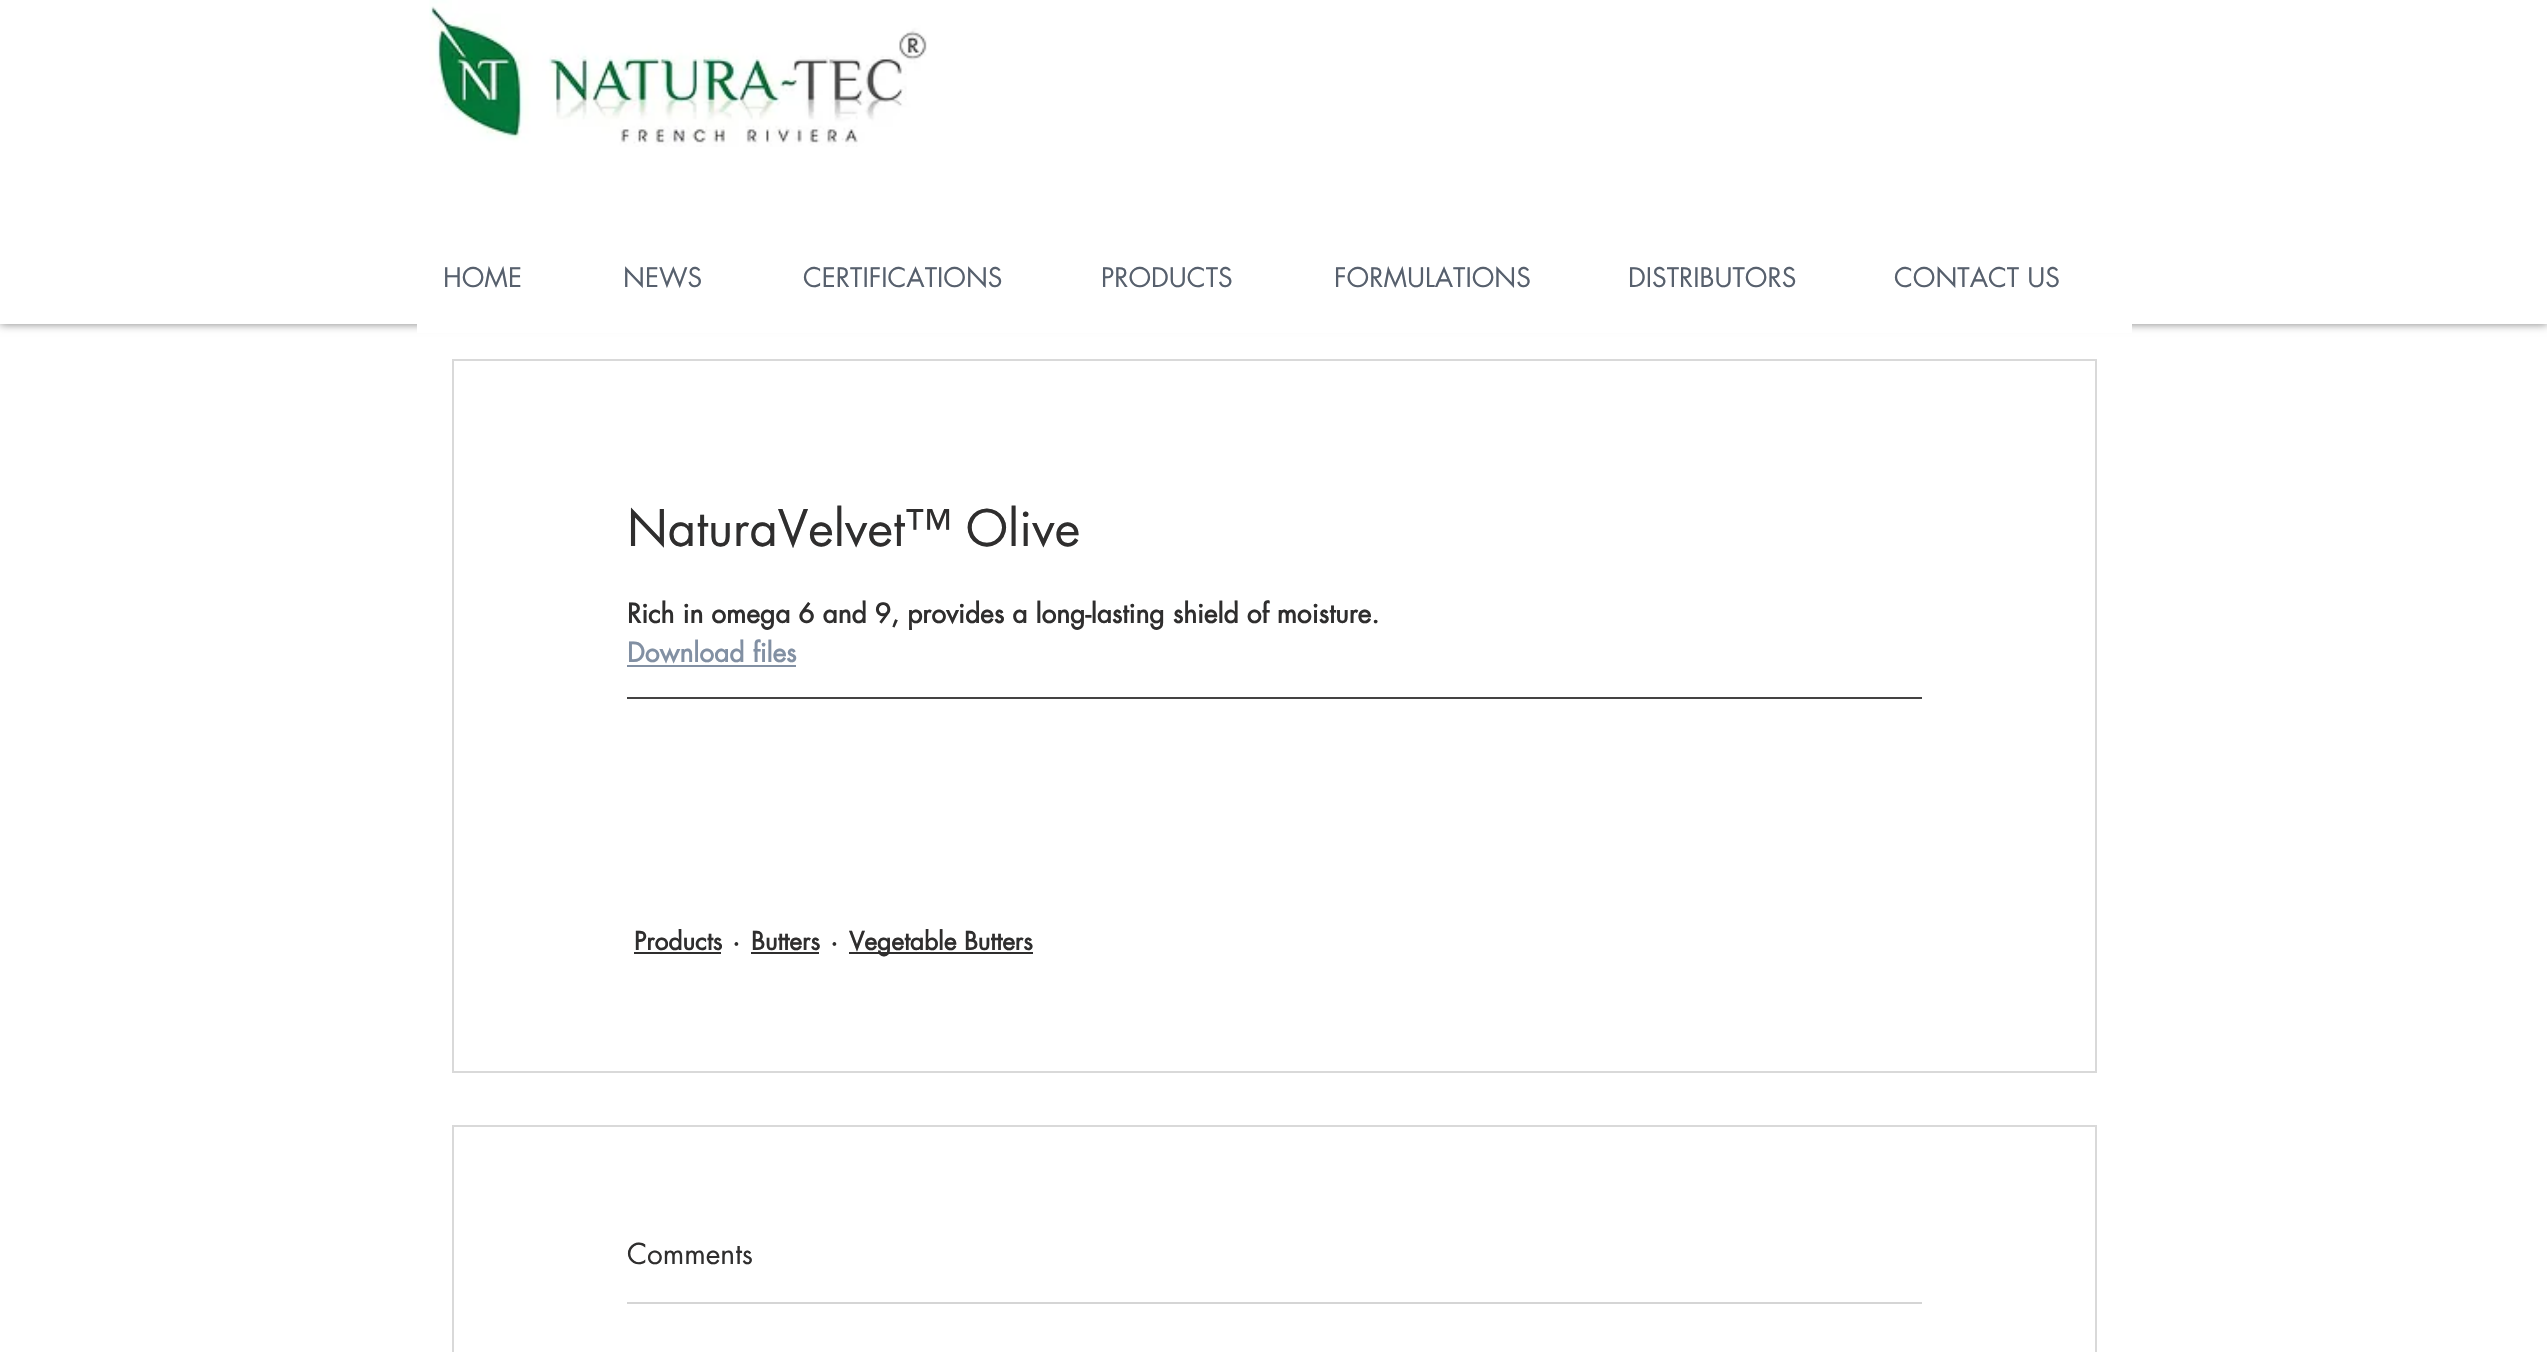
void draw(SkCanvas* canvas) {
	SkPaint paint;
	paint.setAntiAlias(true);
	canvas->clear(0xffffffff);
	paint.setColor(0x80000000);
	paint.setMaskFilter(SkMaskFilter::MakeBlur(kNormal_SkBlurStyle, 4.5));
	canvas->drawRect(SkRect::MakeXYWH(0, 0, 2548, 324), paint);
	paint.setMaskFilter(nullptr);
	paint.setColor(0xffffffff);
	canvas->drawRect(SkRect::MakeXYWH(0, 0, 2547, 324), paint);
	canvas->drawImageRect(SkImages::DeferredFromEncodedData(SkData::MakeFromFileName("img1.png")), SkRect::MakeXYWH(429, 0, 498, 147), SkSamplingOptions());
	SkFont f1(fontMgr->matchFamilyStyle("futura", SkFontStyle::Normal()), 26.25);
	f1.setSubpixel(true);
	paint.setColor(0xff57606d);
	canvas->drawString("HOME", 443, 287, f1, paint);
	canvas->drawString("NEWS", 623, 287, f1, paint);
	canvas->drawString("CERTIFICATIONS", 803, 287, f1, paint);
	canvas->drawString("PRODUCTS", 1101, 287, f1, paint);
	canvas->drawString("FORMULATIONS", 1334, 287, f1, paint);
	canvas->drawString("DISTRIBUTORS", 1628, 287, f1, paint);
	canvas->drawString("CONTACT US", 1894, 287, f1, paint);
	paint.setColor(0xffffffff);
	canvas->drawRect(SkRect::MakeXYWH(417, 324, 1715, 9), paint);
	paint.setStroke(true);
	paint.setStrokeWidth(2);
	paint.setColor(0xffd9d9d9);
	canvas->drawRect(SkRect::MakeXYWH(453, 360, 1643, 712), paint);
	SkFont f2(fontMgr->matchFamilyStyle("futura", SkFontStyle::Normal()), 49);
	f2.setSubpixel(true);
	paint.setStroke(false);
	paint.setColor(0xff2f2e2e);
	canvas->drawString("NaturaVelvet™ Olive", 627, 546, f2, paint);
	SkFont f3(fontMgr->matchFamilyStyle("futura", SkFontStyle::Bold()), 26.25);
	f3.setSubpixel(true);
	canvas->drawString("Rich in omega 6 and 9, provides a long-lasting shield of moisture.", 627, 623, f3, paint);
	paint.setColor(0xff8290a3);
	canvas->drawString("Download files", 627, 662, f3, paint);
	canvas->drawRect(SkRect::MakeXYWH(627, 665, 169, 2), paint);
	paint.setColor(0xff444343);
	canvas->drawRect(SkRect::MakeXYWH(627, 697, 1295, 2), paint);
	SkFont f4(fontMgr->matchFamilyStyle("futura", SkFontStyle::Bold()), 24.5);
	f4.setSubpixel(true);
	paint.setColor(0xff2f2e2e);
	canvas->drawString("Products", 634, 950, f4, paint);
	canvas->drawRect(SkRect::MakeXYWH(634, 952, 87, 2), paint);
	canvas->drawString("·", 732, 951, f3, paint);
	canvas->drawString("Butters", 751, 950, f4, paint);
	canvas->drawRect(SkRect::MakeXYWH(751, 952, 68, 2), paint);
	canvas->drawString("·", 830, 951, f3, paint);
	canvas->drawRect(SkRect::MakeXYWH(849, 952, 184, 2), paint);
	canvas->drawString("Vegetable Butters", 849, 950, f4, paint);
	paint.setStroke(true);
	paint.setColor(0xffd9d9d9);
	canvas->drawRect(SkRect::MakeXYWH(453, 1126, 1643, 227), paint);
	SkFont f5(fontMgr->matchFamilyStyle("futura", SkFontStyle::Normal()), 28);
	f5.setSubpixel(true);
	paint.setStroke(false);
	paint.setColor(0xff2f2e2e);
	canvas->drawString("Comments", 627, 1264, f5, paint);
	paint.setColor(0xffd5d5d5);
	canvas->drawRect(SkRect::MakeXYWH(627, 1302, 1295, 2), paint);
}
